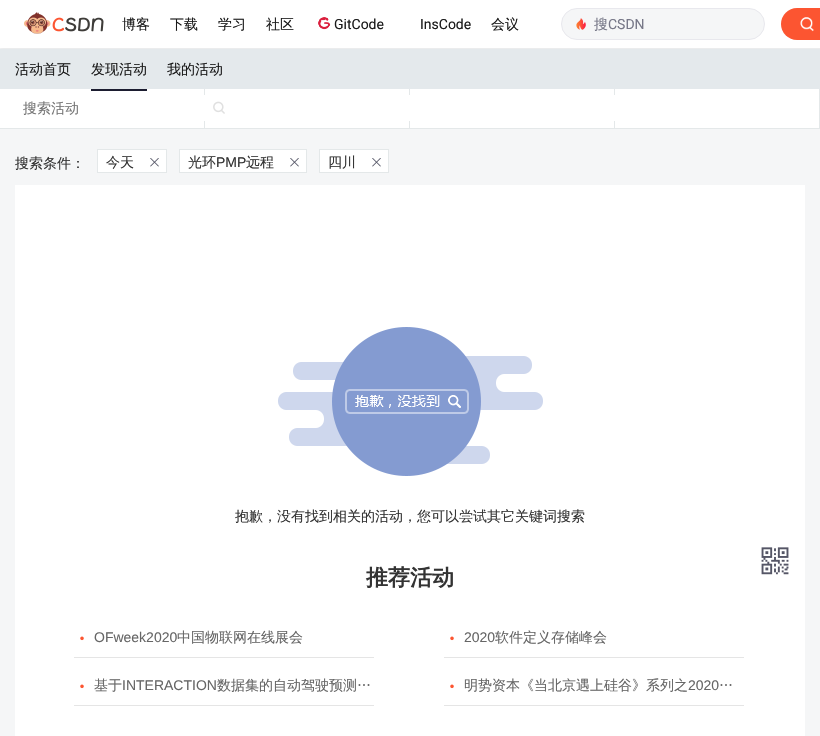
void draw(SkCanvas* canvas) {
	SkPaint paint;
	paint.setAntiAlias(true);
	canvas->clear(0xfff5f6f7);
	paint.setColor(0x0d000000);
	paint.setMaskFilter(SkMaskFilter::MakeBlur(kNormal_SkBlurStyle, 2));
	canvas->drawRect(SkRect::MakeXYWH(0, 2, 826, 48), paint);
	paint.setMaskFilter(nullptr);
	paint.setColor(0xffffffff);
	canvas->drawRect(SkRect::MakeXYWH(0, 0, 820, 48), paint);
	canvas->drawImageRect(SkImages::DeferredFromEncodedData(SkData::MakeFromFileName("img1.png")), SkRect::MakeXYWH(24, 12, 80, 22), SkSamplingOptions());
	SkFont f1(fontMgr->matchFamilyStyle("WenQuanYi Zen Hei", SkFontStyle(500, SkFontStyle::kNormal_Width, SkFontStyle::kUpright_Slant)), 14);
	f1.setSubpixel(true);
	paint.setColor(0xff1a1a1a);
	canvas->drawString("博客", 122, 29, f1, paint);
	canvas->drawString("下载", 170, 29, f1, paint);
	canvas->drawString("学习", 218, 29, f1, paint);
	canvas->drawString("社区", 266, 29, f1, paint);
	canvas->drawImageRect(SkImages::DeferredFromEncodedData(SkData::MakeFromFileName("img2.png")), SkRect::MakeXYWH(318, 17, 13, 13), SkSamplingOptions());
	SkFont f2(fontMgr->matchFamilyStyle("Roboto", SkFontStyle::Normal()), 14);
	f2.setSubpixel(true);
	canvas->drawString("GitCode", 334, 29, f2, paint);
	canvas->drawString("InsCode", 420, 29, f2, paint);
	canvas->drawString("会议", 491, 29, f1, paint);
	paint.setColor(0xfff5f6f7);
	canvas->drawRoundRect(SkRect::MakeXYWH(561.5, 8.5, 203, 31), 15.5, 15.5, paint);
	paint.setStroke(true);
	paint.setStrokeWidth(1);
	paint.setColor(0xffe8e8ed);
	canvas->drawRoundRect(SkRect::MakeXYWH(561.5, 8.5, 203, 31), 15.5, 15.5, paint);
	canvas->drawImageRect(SkImages::DeferredFromEncodedData(SkData::MakeFromFileName("img3.png")), SkRect::MakeXYWH(576, 18, 10, 12), SkSamplingOptions());
	paint.setStroke(false);
	paint.setColor(0xff777888);
	canvas->drawString("搜", 594, 29, f1, paint);
	canvas->drawString("CSDN", 608, 29, f2, paint);
	paint.setColor(0xfffc5531);
	canvas->drawRoundRect(SkRect::MakeXYWH(781, 8, 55, 32), 16, 16, paint);
	canvas->drawImageRect(SkImages::DeferredFromEncodedData(SkData::MakeFromFileName("img4.png")), SkRect::MakeXYWH(800, 17, 14, 15), SkSamplingOptions());
	paint.setColor(0xffe4e9ec);
	canvas->drawRect(SkRect::MakeXYWH(0, 49, 820, 40), paint);
	paint.setColor(0xff1a1a1a);
	canvas->drawString("活动首页", 15, 74, f1, paint);
	paint.setColor(0xffffffff);
	canvas->drawRect(SkRect::MakeXYWH(0, 89, 819, 39), paint);
	paint.setColor(0xff1c1d30);
	canvas->drawRect(SkRect::MakeXYWH(91, 89, 56, 2), paint);
	paint.setColor(0xff1a1a1a);
	canvas->drawString("发现活动", 91, 74, f1, paint);
	canvas->drawString("我的活动", 167, 74, f1, paint);
	paint.setColor(0xffe4e8e9);
	canvas->drawRect(SkRect::MakeXYWH(204, 89, 1, 40), paint);
	canvas->drawRect(SkRect::MakeXYWH(409, 89, 1, 40), paint);
	canvas->drawRect(SkRect::MakeXYWH(614, 89, 1, 40), paint);
	paint.setColor(0xffffffff);
	canvas->drawRoundRect(SkRect::MakeXYWH(15, 95, 790, 26), 2, 2, paint);
	paint.setColor(0xff757575);
	canvas->drawString("搜索活动", 23, 113, f1, paint);
	canvas->drawImageRect(SkImages::DeferredFromEncodedData(SkData::MakeFromFileName("img5.png")), SkRect::MakeXYWH(213, 101, 12, 13), SkSamplingOptions());
	paint.setColor(0xffe4e8e9);
	canvas->drawRect(SkRect::MakeXYWH(0, 128, 205, 1), paint);
	canvas->drawRect(SkRect::MakeXYWH(205, 128, 205, 1), paint);
	canvas->drawRect(SkRect::MakeXYWH(410, 128, 205, 1), paint);
	canvas->drawRect(SkRect::MakeXYWH(819, 89, 1, 40), paint);
	canvas->drawRect(SkRect::MakeXYWH(615, 128, 205, 1), paint);
	paint.setColor(0xff333333);
	canvas->drawString("搜索条件：", 15, 168, f1, paint);
	paint.setColor(0xffffffff);
	canvas->drawRect(SkRect::MakeXYWH(97.5, 149.5, 69, 23), paint);
	paint.setStroke(true);
	paint.setColor(0xffe4e8e9);
	canvas->drawRect(SkRect::MakeXYWH(97.5, 149.5, 69, 23), paint);
	paint.setStroke(false);
	paint.setColor(0xff333333);
	canvas->drawString("今天", 106, 167, f1, paint);
	canvas->drawImageRect(SkImages::DeferredFromEncodedData(SkData::MakeFromFileName("img6.png")), SkRect::MakeXYWH(150, 158, 9, 9), SkSamplingOptions());
	paint.setColor(0xffffffff);
	canvas->drawRect(SkRect::MakeXYWH(179.5, 149.5, 127, 23), paint);
	paint.setStroke(true);
	paint.setColor(0xffe4e8e9);
	canvas->drawRect(SkRect::MakeXYWH(179.5, 149.5, 127, 23), paint);
	paint.setStroke(false);
	paint.setColor(0xff333333);
	canvas->drawString("光环", 188, 167, f1, paint);
	SkFont f3(fontMgr->matchFamilyStyle("Liberation Sans", SkFontStyle::Normal()), 14);
	f3.setSubpixel(true);
	canvas->drawString("PMP", 216, 167, f3, paint);
	canvas->drawString("远程", 246, 167, f1, paint);
	canvas->drawImageRect(SkImages::DeferredFromEncodedData(SkData::MakeFromFileName("img6.png")), SkRect::MakeXYWH(290, 158, 9, 9), SkSamplingOptions());
	paint.setColor(0xffffffff);
	canvas->drawRect(SkRect::MakeXYWH(319.5, 149.5, 69, 23), paint);
	paint.setStroke(true);
	paint.setColor(0xffe4e8e9);
	canvas->drawRect(SkRect::MakeXYWH(319.5, 149.5, 69, 23), paint);
	paint.setStroke(false);
	paint.setColor(0xff333333);
	canvas->drawString("四川", 328, 167, f1, paint);
	canvas->drawImageRect(SkImages::DeferredFromEncodedData(SkData::MakeFromFileName("img6.png")), SkRect::MakeXYWH(372, 158, 9, 9), SkSamplingOptions());
	paint.setColor(0xffffffff);
	canvas->drawRect(SkRect::MakeXYWH(15, 185, 790, 551), paint);
	canvas->drawImageRect(SkImages::DeferredFromEncodedData(SkData::MakeFromFileName("img7.png")), SkRect::MakeXYWH(278, 327, 265, 149), SkSamplingOptions());
	paint.setColor(0xff333333);
	canvas->drawString("抱歉，没有找到相关的活动，您可以尝试其它关键词搜索", 235, 521, f1, paint);
	SkFont f4(fontMgr->matchFamilyStyle("WenQuanYi Zen Hei", SkFontStyle::Bold()), 22);
	f4.setSubpixel(true);
	canvas->drawString("推荐活动", 366, 585, f4, paint);
	paint.setColor(0xffe5e5e5);
	canvas->drawRect(SkRect::MakeXYWH(74, 657, 300, 1), paint);
	canvas->drawImageRect(SkImages::DeferredFromEncodedData(SkData::MakeFromFileName("img8.png")), SkRect::MakeXYWH(80, 636, 4, 5), SkSamplingOptions());
	paint.setColor(0xff666666);
	canvas->drawString("OFweek2020", 94, 642, f3, paint);
	canvas->drawString("中国物联网在线展会", 177, 642, f1, paint);
	paint.setColor(0xffe5e5e5);
	canvas->drawRect(SkRect::MakeXYWH(444, 657, 300, 1), paint);
	canvas->drawImageRect(SkImages::DeferredFromEncodedData(SkData::MakeFromFileName("img8.png")), SkRect::MakeXYWH(450, 636, 4, 5), SkSamplingOptions());
	paint.setColor(0xff666666);
	canvas->drawString("2020", 464, 642, f3, paint);
	canvas->drawString("软件定义存储峰会", 495, 642, f1, paint);
	paint.setColor(0xffe5e5e5);
	canvas->drawRect(SkRect::MakeXYWH(74, 705, 300, 1), paint);
	canvas->drawImageRect(SkImages::DeferredFromEncodedData(SkData::MakeFromFileName("img8.png")), SkRect::MakeXYWH(80, 684, 4, 5), SkSamplingOptions());
	paint.setColor(0xff666666);
	canvas->drawString("基于", 94, 690, f1, paint);
	canvas->drawString("INTERACTION", 122, 690, f3, paint);
	canvas->drawString("数据集的自动驾驶预测…", 217, 690, f1, paint);
	paint.setColor(0xffe5e5e5);
	canvas->drawRect(SkRect::MakeXYWH(444, 705, 300, 1), paint);
	canvas->drawImageRect(SkImages::DeferredFromEncodedData(SkData::MakeFromFileName("img8.png")), SkRect::MakeXYWH(450, 684, 4, 5), SkSamplingOptions());
	paint.setColor(0xff666666);
	canvas->drawString("明势资本《当北京遇上硅谷》系列之", 464, 690, f1, paint);
	canvas->drawString("2020", 688, 690, f3, paint);
	canvas->drawString("…", 719, 690, f1, paint);
	canvas->drawImageRect(SkImages::DeferredFromEncodedData(SkData::MakeFromFileName("img9.png")), SkRect::MakeXYWH(761, 547, 28, 28), SkSamplingOptions());
}
